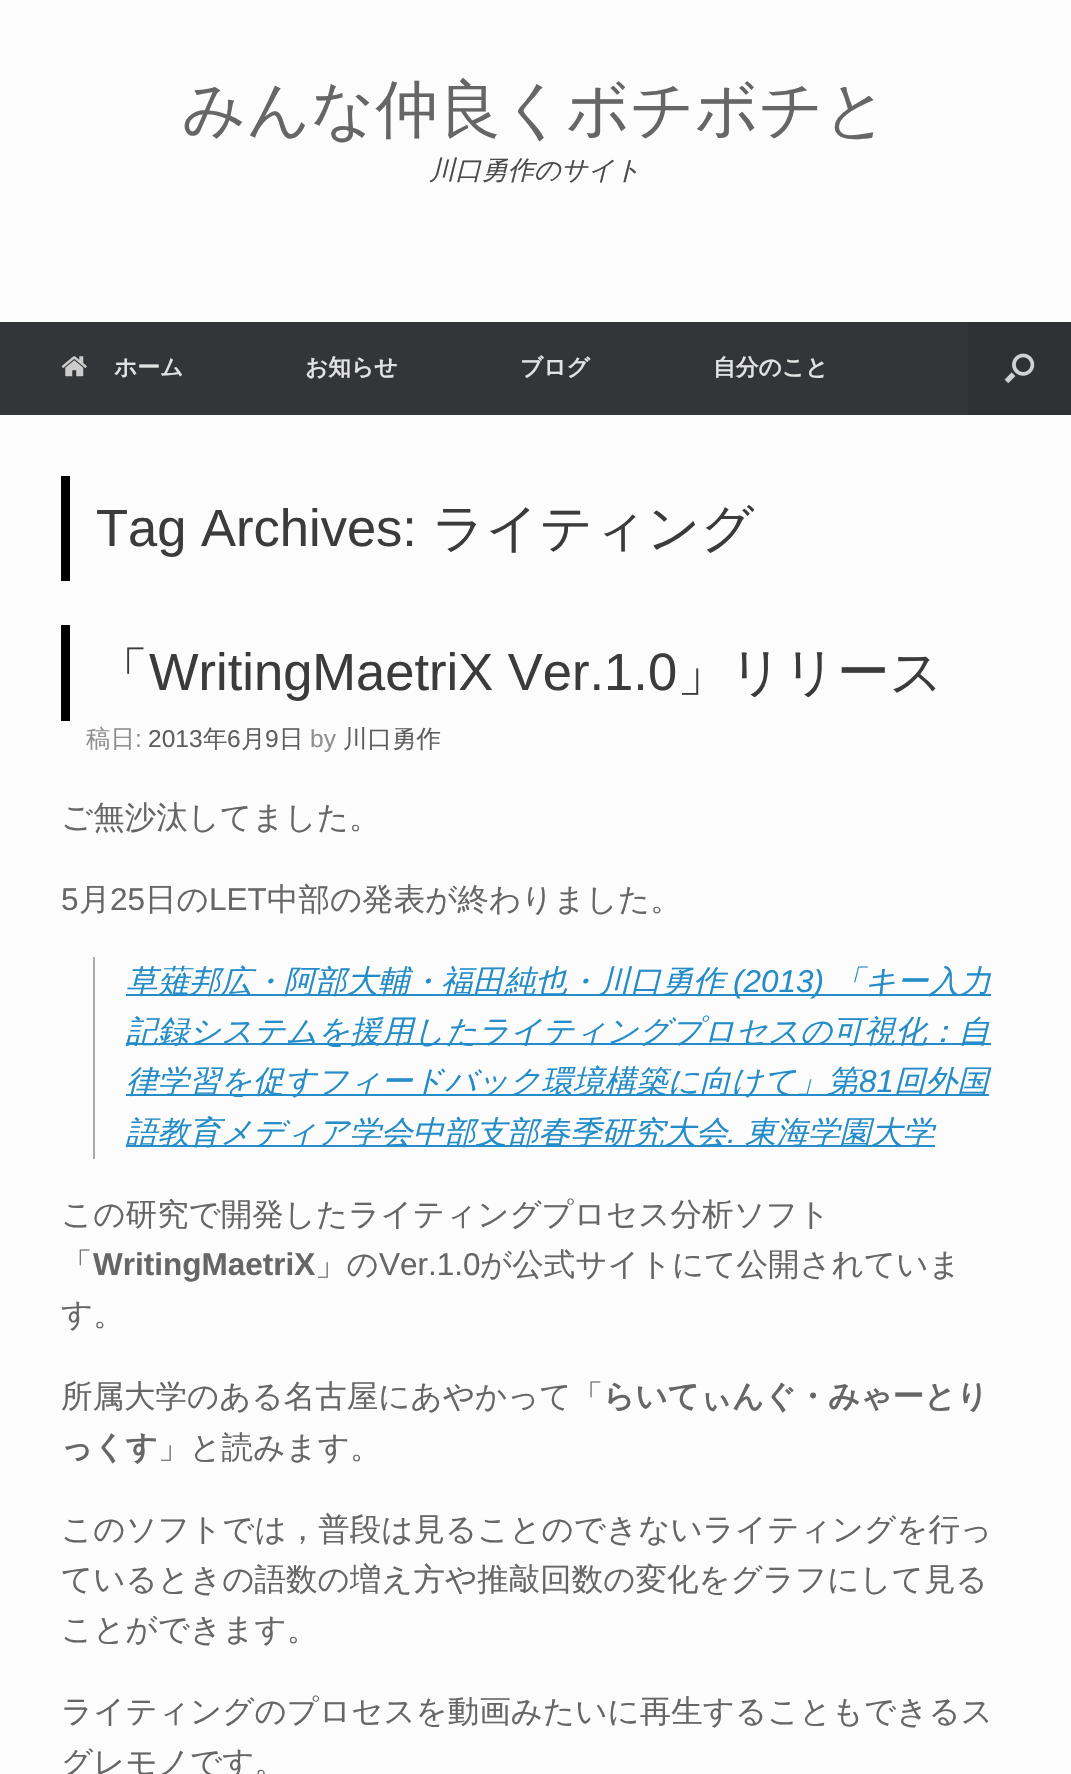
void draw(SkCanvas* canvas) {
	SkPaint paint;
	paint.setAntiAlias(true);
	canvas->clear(0xfffcfcfc);
	SkFont f1(fontMgr->matchFamilyStyle("WenQuanYi Zen Hei", SkFontStyle(500, SkFontStyle::kNormal_Width, SkFontStyle::kUpright_Slant)), 63);
	f1.setSubpixel(true);
	paint.setColor(0xff666666);
	canvas->drawString("みんな仲良くボチボチと", 182, 131, f1, paint);
	SkFont f2(fontMgr->matchFamilyStyle("WenQuanYi Zen Hei", SkFontStyle(500, SkFontStyle::kNormal_Width, SkFontStyle::kItalic_Slant)), 26.25);
	f2.setSubpixel(true);
	paint.setColor(0xff4b4b4b);
	canvas->drawString("川口勇作のサイト", 429, 179, f2, paint);
	paint.setColor(0xff343538);
	canvas->drawRect(SkRect::MakeXYWH(0, 322, 968, 93), paint);
	canvas->drawImageRect(SkImages::DeferredFromEncodedData(SkData::MakeFromFileName("img1.png")), SkRect::MakeXYWH(61, 356, 26, 21), SkSamplingOptions());
	SkFont f3(fontMgr->matchFamilyStyle("WenQuanYi Zen Hei", SkFontStyle::Bold()), 22.75);
	f3.setSubpixel(true);
	paint.setColor(0xffe2e2e2);
	canvas->drawString("ホーム", 114, 375, f3, paint);
	canvas->drawString("お知らせ", 305, 375, f3, paint);
	canvas->drawString("ブログ", 520, 375, f3, paint);
	canvas->drawString("自分のこと", 713, 375, f3, paint);
	paint.setColor(0xff303134);
	canvas->drawRect(SkRect::MakeXYWH(968, 322, 103, 93), paint);
	canvas->drawImageRect(SkImages::DeferredFromEncodedData(SkData::MakeFromFileName("img2.png")), SkRect::MakeXYWH(1004, 353, 31, 31), SkSamplingOptions());
	paint.setColor(0xff000000);
	canvas->drawRect(SkRect::MakeXYWH(61, 476, 9, 105), paint);
	SkFont f4(fontMgr->matchFamilyStyle("Liberation Sans", SkFontStyle::Normal()), 52.5);
	f4.setSubpixel(true);
	paint.setColor(0xff3b3b3b);
	canvas->drawString("Tag Archives:", 96, 546, f4, paint);
	SkFont f5(fontMgr->matchFamilyStyle("WenQuanYi Zen Hei", SkFontStyle(500, SkFontStyle::kNormal_Width, SkFontStyle::kUpright_Slant)), 52.5);
	f5.setSubpixel(true);
	canvas->drawString("ライティング", 432, 546, f5, paint);
	paint.setColor(0xff000000);
	canvas->drawRect(SkRect::MakeXYWH(61, 625, 9, 96), paint);
	paint.setColor(0xff3b3b3b);
	canvas->drawString("「", 96, 690, f5, paint);
	canvas->drawString("WritingMaetriX Ver.1.0", 149, 690, f4, paint);
	canvas->drawString("」リリース", 677, 690, f5, paint);
	SkFont f6(fontMgr->matchFamilyStyle("Noto Sans", SkFontStyle::Normal()), 24.5);
	f6.setSubpixel(true);
	paint.setColor(0xff8f8f8f);
	canvas->drawString("投", 61, 747, f6, paint);
	SkFont f7(fontMgr->matchFamilyStyle("WenQuanYi Zen Hei", SkFontStyle(500, SkFontStyle::kNormal_Width, SkFontStyle::kUpright_Slant)), 24.5);
	f7.setSubpixel(true);
	canvas->drawString("稿日", 86, 747, f7, paint);
	SkFont f8(fontMgr->matchFamilyStyle("Liberation Sans", SkFontStyle::Normal()), 24.5);
	f8.setSubpixel(true);
	canvas->drawString(":", 135, 747, f8, paint);
	paint.setColor(0xff5e5e5e);
	canvas->drawString("2013", 148, 747, f8, paint);
	canvas->drawString("年", 203, 747, f7, paint);
	canvas->drawString("6", 227, 747, f8, paint);
	canvas->drawString("月", 241, 747, f7, paint);
	canvas->drawString("9", 265, 747, f8, paint);
	canvas->drawString("日", 279, 747, f7, paint);
	paint.setColor(0xff8f8f8f);
	canvas->drawString("by", 310, 747, f8, paint);
	paint.setColor(0xff5e5e5e);
	canvas->drawString("川口勇作", 343, 747, f7, paint);
	SkFont f9(fontMgr->matchFamilyStyle("WenQuanYi Zen Hei", SkFontStyle(500, SkFontStyle::kNormal_Width, SkFontStyle::kUpright_Slant)), 31.5);
	f9.setSubpixel(true);
	paint.setColor(0xff666666);
	canvas->drawString("ご無沙汰してました。", 61, 828, f9, paint);
	SkFont f10(fontMgr->matchFamilyStyle("Liberation Sans", SkFontStyle::Normal()), 31.5);
	f10.setSubpixel(true);
	canvas->drawString("5", 61, 910, f10, paint);
	canvas->drawString("月", 79, 910, f9, paint);
	canvas->drawString("25", 110, 910, f10, paint);
	canvas->drawString("日の", 145, 910, f9, paint);
	canvas->drawString("LET", 209, 910, f10, paint);
	canvas->drawString("中部の発表が終わりました。", 267, 910, f9, paint);
	paint.setColor(0xffaaaaaa);
	canvas->drawRect(SkRect::MakeXYWH(93, 957, 2, 202), paint);
	paint.setColor(0xff248cc8);
	canvas->drawRect(SkRect::MakeXYWH(126, 994, 865, 2), paint);
	SkFont f11(fontMgr->matchFamilyStyle("WenQuanYi Zen Hei", SkFontStyle(500, SkFontStyle::kNormal_Width, SkFontStyle::kItalic_Slant)), 31.5);
	f11.setSubpixel(true);
	canvas->drawString("草薙邦広・阿部大輔・福田純也・川口勇作", 126, 992, f11, paint);
	SkFont f12(fontMgr->matchFamilyStyle("Liberation Sans", SkFontStyle::Italic()), 31.5);
	f12.setSubpixel(true);
	canvas->drawString("(2013)", 733, 992, f12, paint);
	canvas->drawString("「キー入力", 833, 992, f11, paint);
	canvas->drawRect(SkRect::MakeXYWH(126, 1043, 865, 2), paint);
	canvas->drawString("記録システムを援用したライティングプロセスの可視化：自", 126, 1042, f11, paint);
	canvas->drawRect(SkRect::MakeXYWH(126, 1094, 863, 2), paint);
	canvas->drawString("律学習を促すフィードバック環境構築に向けて」第", 126, 1092, f11, paint);
	canvas->drawString("81", 859, 1092, f12, paint);
	canvas->drawString("回外国", 894, 1092, f11, paint);
	canvas->drawRect(SkRect::MakeXYWH(126, 1145, 809, 2), paint);
	canvas->drawString("語教育メディア学会中部支部春季研究大会", 126, 1143, f11, paint);
	canvas->drawString(".", 727, 1143, f12, paint);
	canvas->drawString("東海学園大学", 745, 1143, f11, paint);
	paint.setColor(0xff666666);
	canvas->drawString("この研究で開発したライティングプロセス分析ソフト", 61, 1225, f9, paint);
	canvas->drawString("「", 61, 1275, f9, paint);
	SkFont f13(fontMgr->matchFamilyStyle("Liberation Sans", SkFontStyle::Bold()), 31.5);
	f13.setSubpixel(true);
	canvas->drawString("WritingMaetriX", 93, 1275, f13, paint);
	canvas->drawString("」の", 315, 1275, f9, paint);
	canvas->drawString("Ver.1.0", 379, 1275, f10, paint);
	canvas->drawString("が公式サイトにて公開されていま", 480, 1275, f9, paint);
	canvas->drawString("す。", 61, 1325, f9, paint);
	canvas->drawString("所属大学のある名古屋にあやかって「", 61, 1407, f9, paint);
	SkFont f14(fontMgr->matchFamilyStyle("WenQuanYi Zen Hei", SkFontStyle::Bold()), 31.5);
	f14.setSubpixel(true);
	canvas->drawString("らいてぃんぐ・みゃーとり", 603, 1407, f14, paint);
	canvas->drawString("っくす", 61, 1458, f14, paint);
	canvas->drawString("」と読みます。", 158, 1458, f9, paint);
	canvas->drawString("このソフトでは，普段は見ることのできないライティングを行っ", 61, 1540, f9, paint);
	canvas->drawString("ているときの語数の増え方や推敲回数の変化をグラフにして見る", 61, 1590, f9, paint);
	canvas->drawString("ことができます。", 61, 1640, f9, paint);
	canvas->drawString("ライティングのプロセスを動画みたいに再生することもできるス", 61, 1722, f9, paint);
	canvas->drawString("グレモノです。", 61, 1773, f9, paint);
}
